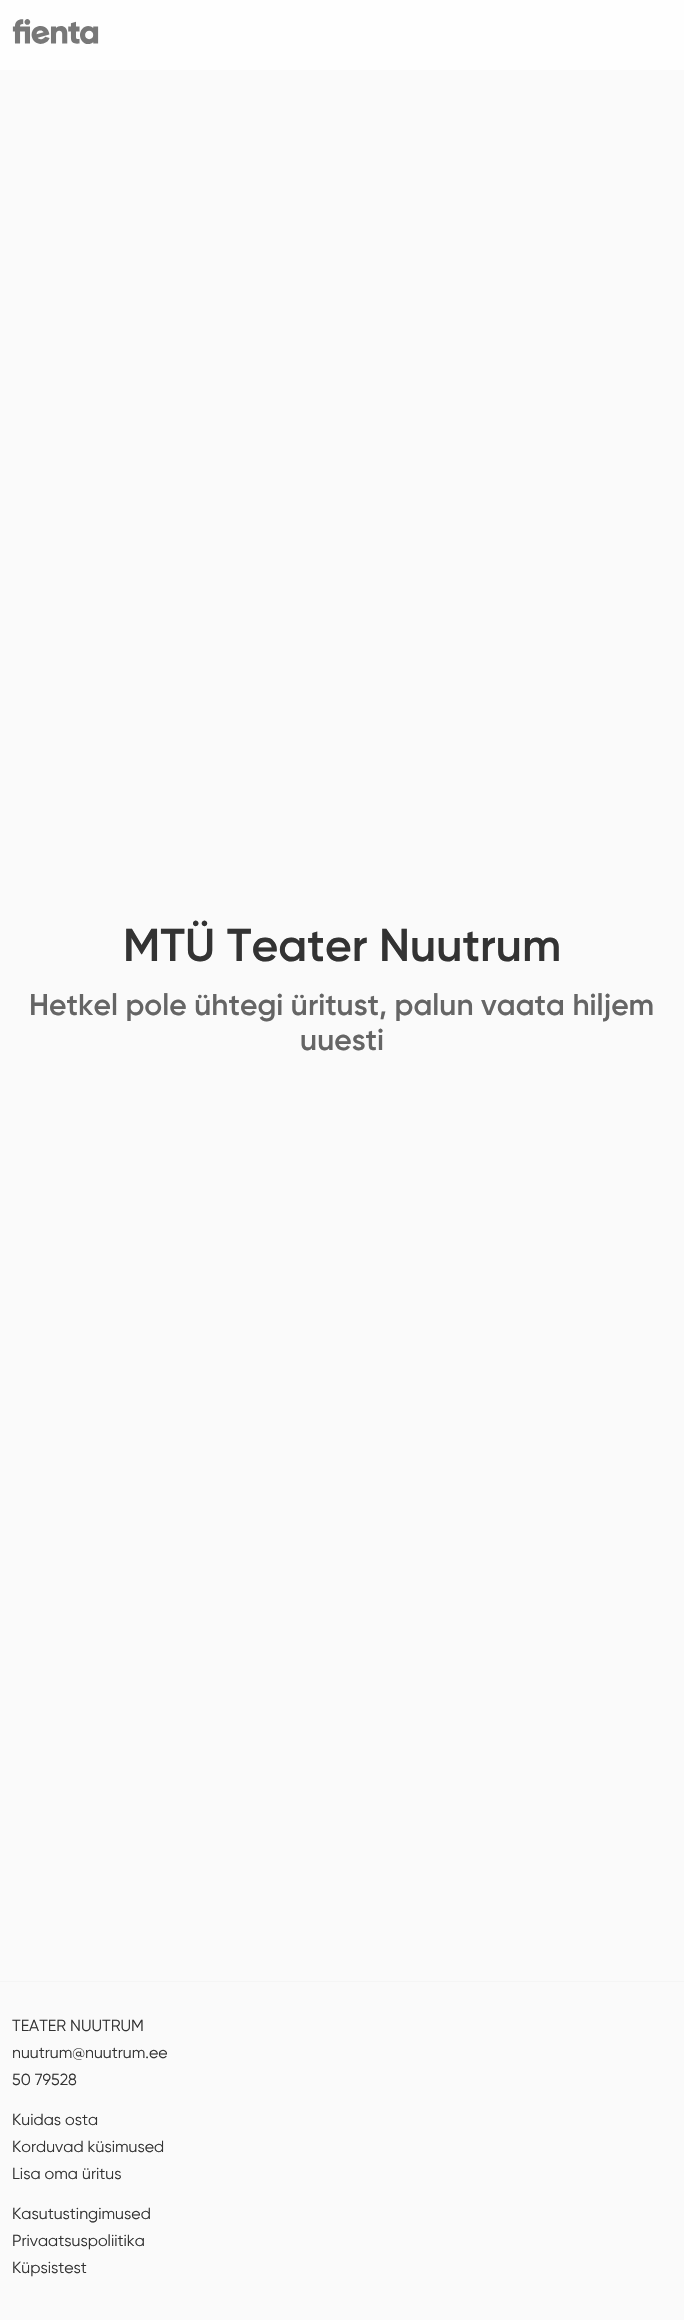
void draw(SkCanvas* canvas) {
	SkPaint paint;
	paint.setAntiAlias(true);
	canvas->clear(0xfffafafa);
	paint.setColor(0xfffefefe);
	canvas->drawRect(SkRect::MakeXYWH(0, 0, 684, 70), paint);
	canvas->drawImageRect(SkImages::DeferredFromEncodedData(SkData::MakeFromFileName("img1.png")), SkRect::MakeXYWH(12, 19, 87, 25), SkSamplingOptions());
	SkFont f1(fontMgr->matchFamilyStyle("Gilroy", SkFontStyle(600, SkFontStyle::kNormal_Width, SkFontStyle::kUpright_Slant)), 46);
	f1.setSubpixel(true);
	paint.setColor(0xff333333);
	canvas->drawString("MTÜ Teater Nuutrum", 123, 961, f1, paint);
	SkFont f2(fontMgr->matchFamilyStyle("Gilroy", SkFontStyle(600, SkFontStyle::kNormal_Width, SkFontStyle::kUpright_Slant)), 30);
	f2.setSubpixel(true);
	paint.setColor(0xff656565);
	canvas->drawString("Hetkel pole ühtegi üritust, palun vaata hiljem", 29, 1015, f2, paint);
	canvas->drawString("uuesti", 300, 1050, f2, paint);
	paint.setColor(0xfff5f5f5);
	canvas->drawRect(SkRect::MakeXYWH(0, 1981, 684, 1), paint);
	SkFont f3(fontMgr->matchFamilyStyle("Gilroy", SkFontStyle::Normal()), 16);
	f3.setSubpixel(true);
	paint.setColor(0xff333333);
	canvas->drawString("TEATER NUUTRUM", 12, 2031, f3, paint);
	canvas->drawString("nuutrum@nuutrum.ee", 12, 2058, f3, paint);
	canvas->drawString("50 79528", 12, 2085, f3, paint);
	canvas->drawString("Kuidas osta", 12, 2125, f3, paint);
	canvas->drawString("Korduvad küsimused", 12, 2152, f3, paint);
	canvas->drawString("Lisa oma üritus", 12, 2179, f3, paint);
	canvas->drawString("Kasutustingimused", 12, 2219, f3, paint);
	canvas->drawString("Privaatsuspoliitika", 12, 2246, f3, paint);
	canvas->drawString("Küpsistest", 12, 2273, f3, paint);
}
